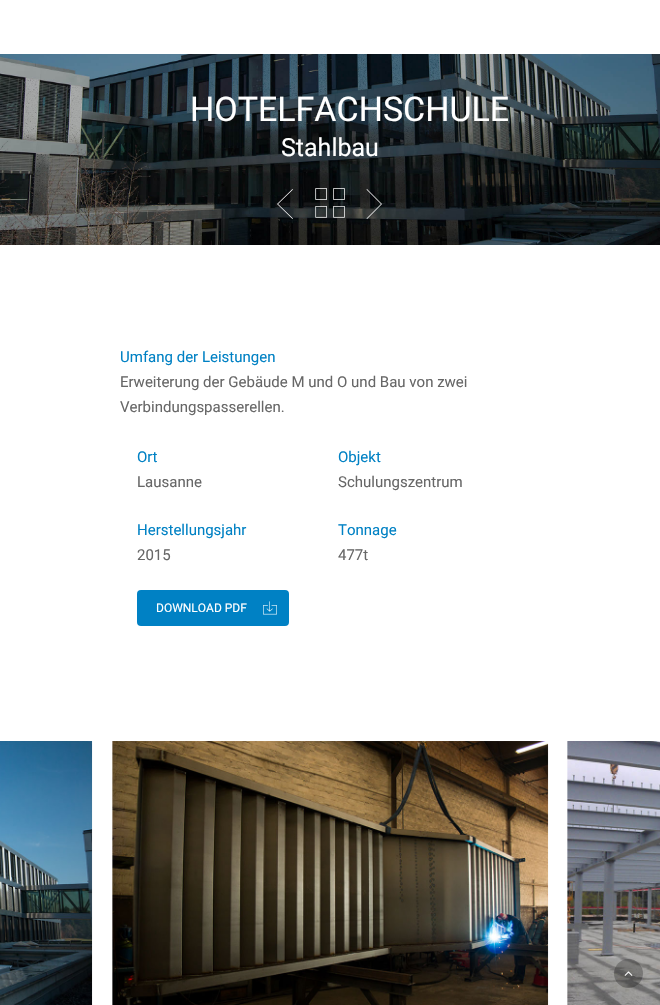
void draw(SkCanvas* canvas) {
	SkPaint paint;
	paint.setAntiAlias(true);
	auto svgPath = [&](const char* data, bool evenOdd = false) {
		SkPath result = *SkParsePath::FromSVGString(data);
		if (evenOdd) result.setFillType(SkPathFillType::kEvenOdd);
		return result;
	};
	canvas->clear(0xffffffff);
	canvas->drawImageRect(SkImages::DeferredFromEncodedData(SkData::MakeFromFileName("img1.png")), SkRect::MakeXYWH(0, 54, 660, 191), SkSamplingOptions());
	SkFont f1(fontMgr->matchFamilyStyle("Roboto", SkFontStyle::Normal()), 34);
	f1.setSubpixel(true);
	paint.setColor(0xffffffff);
	canvas->drawString("HOTELFACHSCHULE", 190, 121, f1, paint);
	SkFont f2(fontMgr->matchFamilyStyle("Roboto", SkFontStyle::Normal()), 25);
	f2.setSubpixel(true);
	canvas->drawString("Stahlbau", 281, 156, f2, paint);
	canvas->drawImageRect(SkImages::DeferredFromEncodedData(SkData::MakeFromFileName("img2.png")), SkRect::MakeXYWH(315, 188, 30, 30), SkSamplingOptions());
	canvas->drawPath(svgPath("M293 189.5L292.5 189L277 204L292.5 219L293 218.5L278 204Z"), paint);
	canvas->drawPath(svgPath("M366.5 189.5L367 189L382 204L367 219L366.5 218.5L381 204Z"), paint);
	SkFont f3(fontMgr->matchFamilyStyle("Roboto", SkFontStyle::Normal()), 15);
	f3.setSubpixel(true);
	paint.setColor(0xff0081c4);
	canvas->drawString("Umfang der Leistungen", 120, 362, f3, paint);
	paint.setColor(0xff676767);
	canvas->drawString("Erweiterung der Gebäude M und O und Bau von zwei", 120, 387, f3, paint);
	canvas->drawString("Verbindungspasserellen.", 120, 412, f3, paint);
	paint.setColor(0xff0081c4);
	canvas->drawString("Ort", 137, 462, f3, paint);
	paint.setColor(0xff676767);
	canvas->drawString("Lausanne", 137, 487, f3, paint);
	paint.setColor(0xff0081c4);
	canvas->drawString("Herstellungsjahr", 137, 535, f3, paint);
	paint.setColor(0xff676767);
	canvas->drawString("2015", 137, 560, f3, paint);
	paint.setColor(0xff0081c4);
	canvas->drawString("Objekt", 338, 462, f3, paint);
	paint.setColor(0xff676767);
	canvas->drawString("Schulungszentrum", 338, 487, f3, paint);
	paint.setColor(0xff0081c4);
	canvas->drawString("Tonnage", 338, 535, f3, paint);
	paint.setColor(0xff676767);
	canvas->drawString("477t", 338, 560, f3, paint);
	paint.setColor(0xff0081c4);
	canvas->drawRoundRect(SkRect::MakeXYWH(137, 590, 152, 36), 4, 4, paint);
	SkFont f4(fontMgr->matchFamilyStyle("Roboto", SkFontStyle::Normal()), 12);
	f4.setSubpixel(true);
	paint.setColor(0xffffffff);
	canvas->drawString("DOWNLOAD PDF", 156, 612, f4, paint);
	canvas->drawImageRect(SkImages::DeferredFromEncodedData(SkData::MakeFromFileName("img3.png")), SkRect::MakeXYWH(263, 601, 14, 14), SkSamplingOptions());
	canvas->drawImageRect(SkImages::DeferredFromEncodedData(SkData::MakeFromFileName("img4.png")), SkRect::MakeXYWH(0, 741, 93, 264), SkSamplingOptions());
	canvas->drawImageRect(SkImages::DeferredFromEncodedData(SkData::MakeFromFileName("img5.png")), SkRect::MakeXYWH(112, 741, 437, 264), SkSamplingOptions());
	canvas->drawImageRect(SkImages::DeferredFromEncodedData(SkData::MakeFromFileName("img6.png")), SkRect::MakeXYWH(567, 741, 93, 264), SkSamplingOptions());
	paint.setColor(0x40000000);
	canvas->drawCircle(628.5, 973.5, 14.5, paint);
	canvas->drawImageRect(SkImages::DeferredFromEncodedData(SkData::MakeFromFileName("img7.png")), SkRect::MakeXYWH(624, 971, 9, 5), SkSamplingOptions());
}
